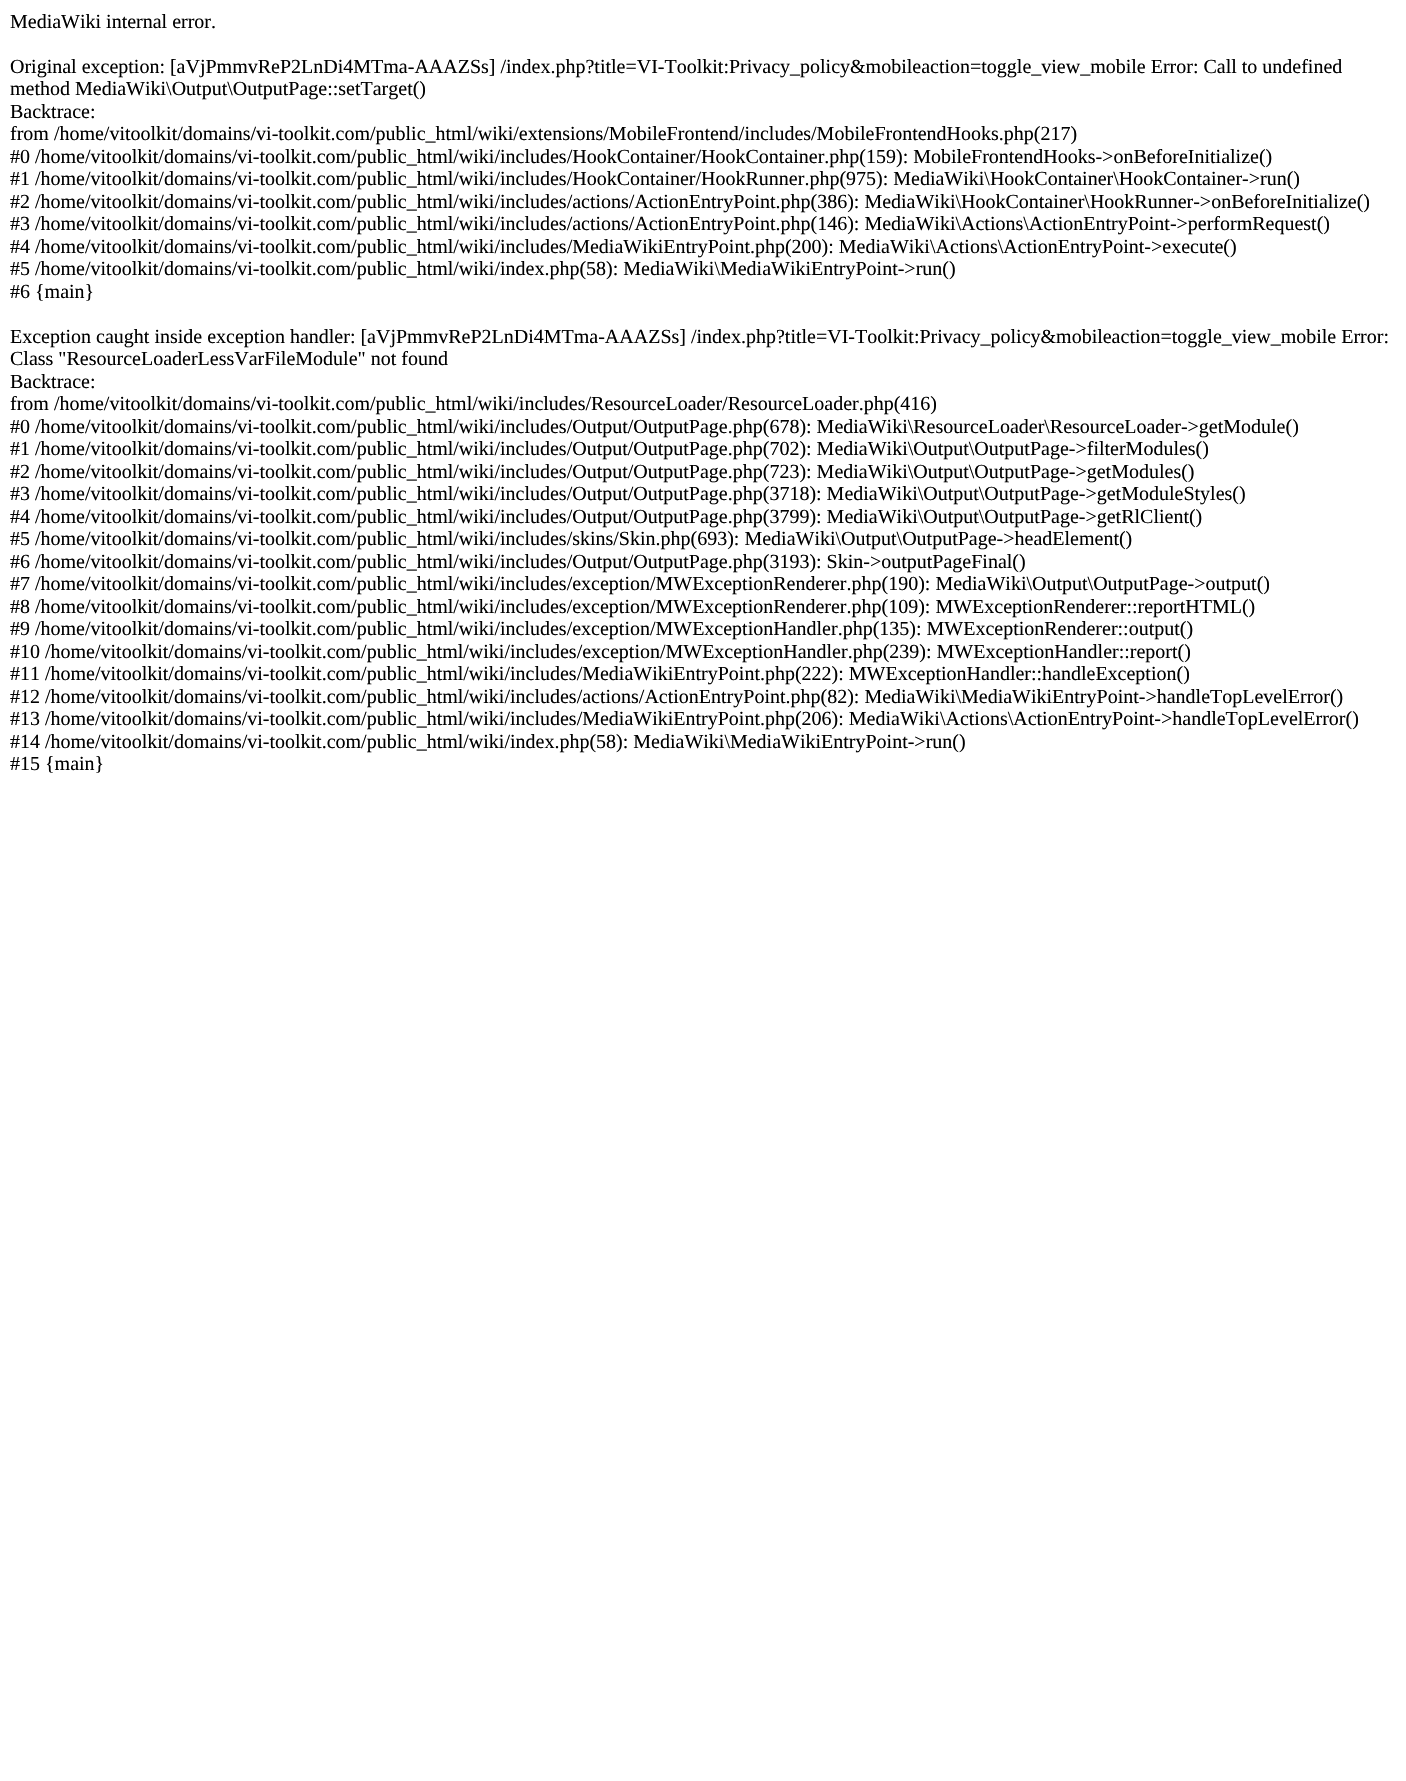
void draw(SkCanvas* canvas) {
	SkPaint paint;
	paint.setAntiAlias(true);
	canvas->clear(0xffffffff);
	SkFont f1(fontMgr->matchFamilyStyle("Liberation Serif", SkFontStyle::Normal()), 20);
	f1.setSubpixel(true);
	paint.setColor(0xff000000);
	canvas->drawString("MediaWiki internal error.", 10, 28, f1, paint);
	canvas->drawString("Original exception: [aVjPmmvReP2LnDi4MTma-AAAZSs] /index.php?title=VI-Toolkit:Privacy_policy&mobileaction=toggle_view_mobile Error: Call to undefined", 10, 73, f1, paint);
	canvas->drawString("method MediaWiki\\Output\\OutputPage::setTarget()", 10, 95, f1, paint);
	canvas->drawString("Backtrace:", 10, 118, f1, paint);
	canvas->drawString("from /home/vitoolkit/domains/vi-toolkit.com/public_html/wiki/extensions/MobileFrontend/includes/MobileFrontendHooks.php(217)", 10, 140, f1, paint);
	canvas->drawString("#0 /home/vitoolkit/domains/vi-toolkit.com/public_html/wiki/includes/HookContainer/HookContainer.php(159): MobileFrontendHooks->onBeforeInitialize()", 10, 163, f1, paint);
	canvas->drawString("#1 /home/vitoolkit/domains/vi-toolkit.com/public_html/wiki/includes/HookContainer/HookRunner.php(975): MediaWiki\\HookContainer\\HookContainer->run()", 10, 185, f1, paint);
	canvas->drawString("#2 /home/vitoolkit/domains/vi-toolkit.com/public_html/wiki/includes/actions/ActionEntryPoint.php(386): MediaWiki\\HookContainer\\HookRunner->onBeforeInitialize()", 10, 208, f1, paint);
	canvas->drawString("#3 /home/vitoolkit/domains/vi-toolkit.com/public_html/wiki/includes/actions/ActionEntryPoint.php(146): MediaWiki\\Actions\\ActionEntryPoint->performRequest()", 10, 230, f1, paint);
	canvas->drawString("#4 /home/vitoolkit/domains/vi-toolkit.com/public_html/wiki/includes/MediaWikiEntryPoint.php(200): MediaWiki\\Actions\\ActionEntryPoint->execute()", 10, 253, f1, paint);
	canvas->drawString("#5 /home/vitoolkit/domains/vi-toolkit.com/public_html/wiki/index.php(58): MediaWiki\\MediaWikiEntryPoint->run()", 10, 275, f1, paint);
	canvas->drawString("#6 {main}", 10, 298, f1, paint);
	canvas->drawString("Exception caught inside exception handler: [aVjPmmvReP2LnDi4MTma-AAAZSs] /index.php?title=VI-Toolkit:Privacy_policy&mobileaction=toggle_view_mobile Error:", 10, 343, f1, paint);
	canvas->drawString("Class \"ResourceLoaderLessVarFileModule\" not found", 10, 365, f1, paint);
	canvas->drawString("Backtrace:", 10, 388, f1, paint);
	canvas->drawString("from /home/vitoolkit/domains/vi-toolkit.com/public_html/wiki/includes/ResourceLoader/ResourceLoader.php(416)", 10, 410, f1, paint);
	canvas->drawString("#0 /home/vitoolkit/domains/vi-toolkit.com/public_html/wiki/includes/Output/OutputPage.php(678): MediaWiki\\ResourceLoader\\ResourceLoader->getModule()", 10, 433, f1, paint);
	canvas->drawString("#1 /home/vitoolkit/domains/vi-toolkit.com/public_html/wiki/includes/Output/OutputPage.php(702): MediaWiki\\Output\\OutputPage->filterModules()", 10, 455, f1, paint);
	canvas->drawString("#2 /home/vitoolkit/domains/vi-toolkit.com/public_html/wiki/includes/Output/OutputPage.php(723): MediaWiki\\Output\\OutputPage->getModules()", 10, 478, f1, paint);
	canvas->drawString("#3 /home/vitoolkit/domains/vi-toolkit.com/public_html/wiki/includes/Output/OutputPage.php(3718): MediaWiki\\Output\\OutputPage->getModuleStyles()", 10, 500, f1, paint);
	canvas->drawString("#4 /home/vitoolkit/domains/vi-toolkit.com/public_html/wiki/includes/Output/OutputPage.php(3799): MediaWiki\\Output\\OutputPage->getRlClient()", 10, 523, f1, paint);
	canvas->drawString("#5 /home/vitoolkit/domains/vi-toolkit.com/public_html/wiki/includes/skins/Skin.php(693): MediaWiki\\Output\\OutputPage->headElement()", 10, 545, f1, paint);
	canvas->drawString("#6 /home/vitoolkit/domains/vi-toolkit.com/public_html/wiki/includes/Output/OutputPage.php(3193): Skin->outputPageFinal()", 10, 568, f1, paint);
	canvas->drawString("#7 /home/vitoolkit/domains/vi-toolkit.com/public_html/wiki/includes/exception/MWExceptionRenderer.php(190): MediaWiki\\Output\\OutputPage->output()", 10, 590, f1, paint);
	canvas->drawString("#8 /home/vitoolkit/domains/vi-toolkit.com/public_html/wiki/includes/exception/MWExceptionRenderer.php(109): MWExceptionRenderer::reportHTML()", 10, 613, f1, paint);
	canvas->drawString("#9 /home/vitoolkit/domains/vi-toolkit.com/public_html/wiki/includes/exception/MWExceptionHandler.php(135): MWExceptionRenderer::output()", 10, 635, f1, paint);
	canvas->drawString("#10 /home/vitoolkit/domains/vi-toolkit.com/public_html/wiki/includes/exception/MWExceptionHandler.php(239): MWExceptionHandler::report()", 10, 658, f1, paint);
	canvas->drawString("#11 /home/vitoolkit/domains/vi-toolkit.com/public_html/wiki/includes/MediaWikiEntryPoint.php(222): MWExceptionHandler::handleException()", 10, 680, f1, paint);
	canvas->drawString("#12 /home/vitoolkit/domains/vi-toolkit.com/public_html/wiki/includes/actions/ActionEntryPoint.php(82): MediaWiki\\MediaWikiEntryPoint->handleTopLevelError()", 10, 703, f1, paint);
	canvas->drawString("#13 /home/vitoolkit/domains/vi-toolkit.com/public_html/wiki/includes/MediaWikiEntryPoint.php(206): MediaWiki\\Actions\\ActionEntryPoint->handleTopLevelError()", 10, 725, f1, paint);
	canvas->drawString("#14 /home/vitoolkit/domains/vi-toolkit.com/public_html/wiki/index.php(58): MediaWiki\\MediaWikiEntryPoint->run()", 10, 748, f1, paint);
	canvas->drawString("#15 {main}", 10, 770, f1, paint);
}
